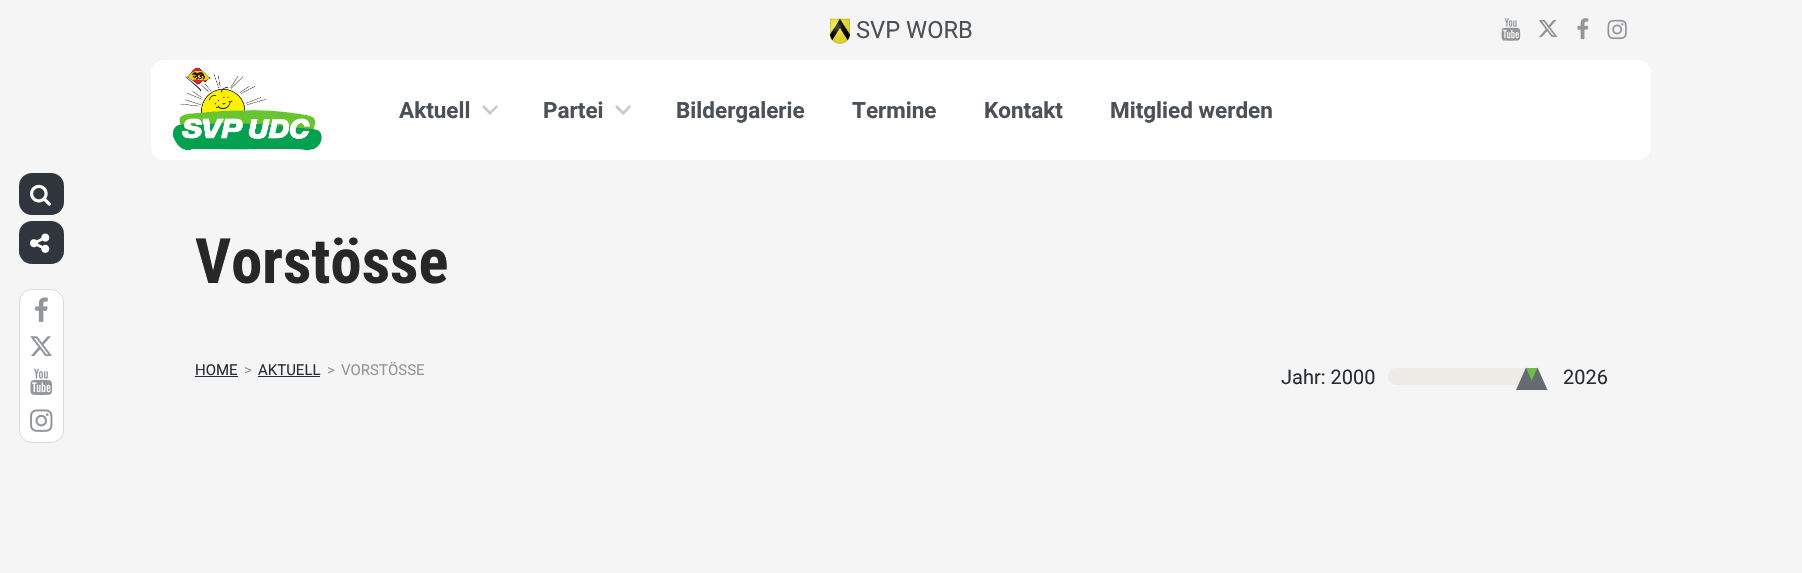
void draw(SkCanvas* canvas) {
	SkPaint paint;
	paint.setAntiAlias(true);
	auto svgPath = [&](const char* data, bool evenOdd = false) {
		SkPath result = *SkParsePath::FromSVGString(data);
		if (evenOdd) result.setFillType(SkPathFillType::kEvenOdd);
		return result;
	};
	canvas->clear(0xfff5f5f5);
	canvas->drawImageRect(SkImages::DeferredFromEncodedData(SkData::MakeFromFileName("img1.png")), SkRect::MakeXYWH(830, 18, 20, 26), SkSamplingOptions());
	SkFont f1(fontMgr->matchFamilyStyle("Roboto", SkFontStyle::Normal()), 23.75);
	f1.setSubpixel(true);
	paint.setColor(0xff4b5157);
	canvas->drawString("SVP WORB", 856, 38, f1, paint);
	canvas->drawImageRect(SkImages::DeferredFromEncodedData(SkData::MakeFromFileName("img2.png")), SkRect::MakeXYWH(1501, 18, 20, 23), SkSamplingOptions());
	canvas->drawImageRect(SkImages::DeferredFromEncodedData(SkData::MakeFromFileName("img3.png")), SkRect::MakeXYWH(1539, 20, 19, 17), SkSamplingOptions());
	canvas->drawImageRect(SkImages::DeferredFromEncodedData(SkData::MakeFromFileName("img4.png")), SkRect::MakeXYWH(1577, 18, 12, 22), SkSamplingOptions());
	canvas->drawImageRect(SkImages::DeferredFromEncodedData(SkData::MakeFromFileName("img5.png")), SkRect::MakeXYWH(1607, 19, 20, 21), SkSamplingOptions());
	paint.setColor(0xffffffff);
	canvas->drawRoundRect(SkRect::MakeXYWH(151, 60, 1500, 100), 13, 13, paint);
	canvas->drawImageRect(SkImages::DeferredFromEncodedData(SkData::MakeFromFileName("img6.png")), SkRect::MakeXYWH(172, 66, 150, 85), SkSamplingOptions());
	SkFont f2(fontMgr->matchFamilyStyle("Roboto", SkFontStyle::Bold()), 22.5);
	f2.setSubpixel(true);
	paint.setColor(0xff4b5157);
	canvas->drawString("Aktuell", 399, 118, f2, paint);
	canvas->drawString("Partei", 543, 118, f2, paint);
	canvas->drawString("Bildergalerie", 676, 118, f2, paint);
	canvas->drawString("Termine", 852, 118, f2, paint);
	canvas->drawString("Kontakt", 984, 118, f2, paint);
	canvas->drawString("Mitglied werden", 1110, 118, f2, paint);
	paint.setColor(0xffc9cbc4);
	canvas->drawPath(svgPath("M484 105L492 113L490 115L482 107Z"), paint);
	canvas->drawPath(svgPath("M488.5 113L496.5 105L498 107L490 115Z"), paint);
	canvas->drawPath(svgPath("M617 105L625 113L623 115L615 107Z"), paint);
	canvas->drawPath(svgPath("M621.5 113L629.5 105L631 107L623.5 115Z"), paint);
	paint.setColor(0xff30363d);
	canvas->drawRoundRect(SkRect::MakeXYWH(19, 173, 45, 42), 13, 13, paint);
	canvas->drawImageRect(SkImages::DeferredFromEncodedData(SkData::MakeFromFileName("img7.png")), SkRect::MakeXYWH(30, 184, 21, 22), SkSamplingOptions());
	canvas->drawRoundRect(SkRect::MakeXYWH(19, 221, 45, 43), 13, 13, paint);
	canvas->drawImageRect(SkImages::DeferredFromEncodedData(SkData::MakeFromFileName("img8.png")), SkRect::MakeXYWH(30, 233, 20, 20), SkSamplingOptions());
	paint.setColor(0xffffffff);
	canvas->drawRoundRect(SkRect::MakeXYWH(19.5, 289.5, 44, 153), 12.5, 12.5, paint);
	paint.setStroke(true);
	paint.setStrokeWidth(1);
	paint.setColor(0xffd9dadb);
	canvas->drawRoundRect(SkRect::MakeXYWH(19.5, 289.5, 44, 153), 12.5, 12.5, paint);
	canvas->drawImageRect(SkImages::DeferredFromEncodedData(SkData::MakeFromFileName("img9.png")), SkRect::MakeXYWH(35, 297, 13, 25), SkSamplingOptions());
	canvas->drawImageRect(SkImages::DeferredFromEncodedData(SkData::MakeFromFileName("img10.png")), SkRect::MakeXYWH(30, 336, 22, 20), SkSamplingOptions());
	canvas->drawImageRect(SkImages::DeferredFromEncodedData(SkData::MakeFromFileName("img11.png")), SkRect::MakeXYWH(30, 368, 23, 27), SkSamplingOptions());
	canvas->drawImageRect(SkImages::DeferredFromEncodedData(SkData::MakeFromFileName("img12.png")), SkRect::MakeXYWH(30, 409, 23, 23), SkSamplingOptions());
	SkFont f3(fontMgr->matchFamilyStyle("Roboto Condensed", SkFontStyle::Bold()), 62.5);
	f3.setSubpixel(true);
	paint.setStroke(false);
	paint.setColor(0xff272727);
	canvas->drawString("Vorstösse", 195, 283, f3, paint);
	SkFont f4(fontMgr->matchFamilyStyle("Roboto", SkFontStyle::Normal()), 15);
	f4.setSubpixel(true);
	paint.setColor(0xff262d33);
	canvas->drawString("HOME", 195, 375, f4, paint);
	canvas->drawRect(SkRect::MakeXYWH(195, 376, 43, 1), paint);
	paint.setColor(0xff939699);
	canvas->drawString(">", 244, 375, f4, paint);
	paint.setColor(0xff262d33);
	canvas->drawString("AKTUELL", 258, 375, f4, paint);
	canvas->drawRect(SkRect::MakeXYWH(258, 376, 62, 1), paint);
	paint.setColor(0xff939699);
	canvas->drawString(">", 327, 375, f4, paint);
	canvas->drawString("VORSTÖSSE", 341, 375, f4, paint);
	SkFont f5(fontMgr->matchFamilyStyle("Roboto", SkFontStyle::Normal()), 20);
	f5.setSubpixel(true);
	paint.setColor(0xff262d33);
	canvas->drawString("Jahr: 2000", 1281, 384, f5, paint);
	paint.setColor(0xffedece7);
	canvas->drawRoundRect(SkRect::MakeXYWH(1388, 368, 150, 17), 8.5, 8.5, paint);
	paint.setColor(0xff72be44);
	canvas->drawRect(SkRect::MakeXYWH(1526, 368, 12, 13), paint);
	paint.setColor(0xff656b70);
	canvas->drawPath(svgPath("M1536 390H1516L1526 367.5Z"), paint);
	canvas->drawPath(svgPath("M1547.5 390H1527.5L1537.5 367.5Z"), paint);
	paint.setColor(0xff262d33);
	canvas->drawString("2026", 1563, 384, f5, paint);
}
